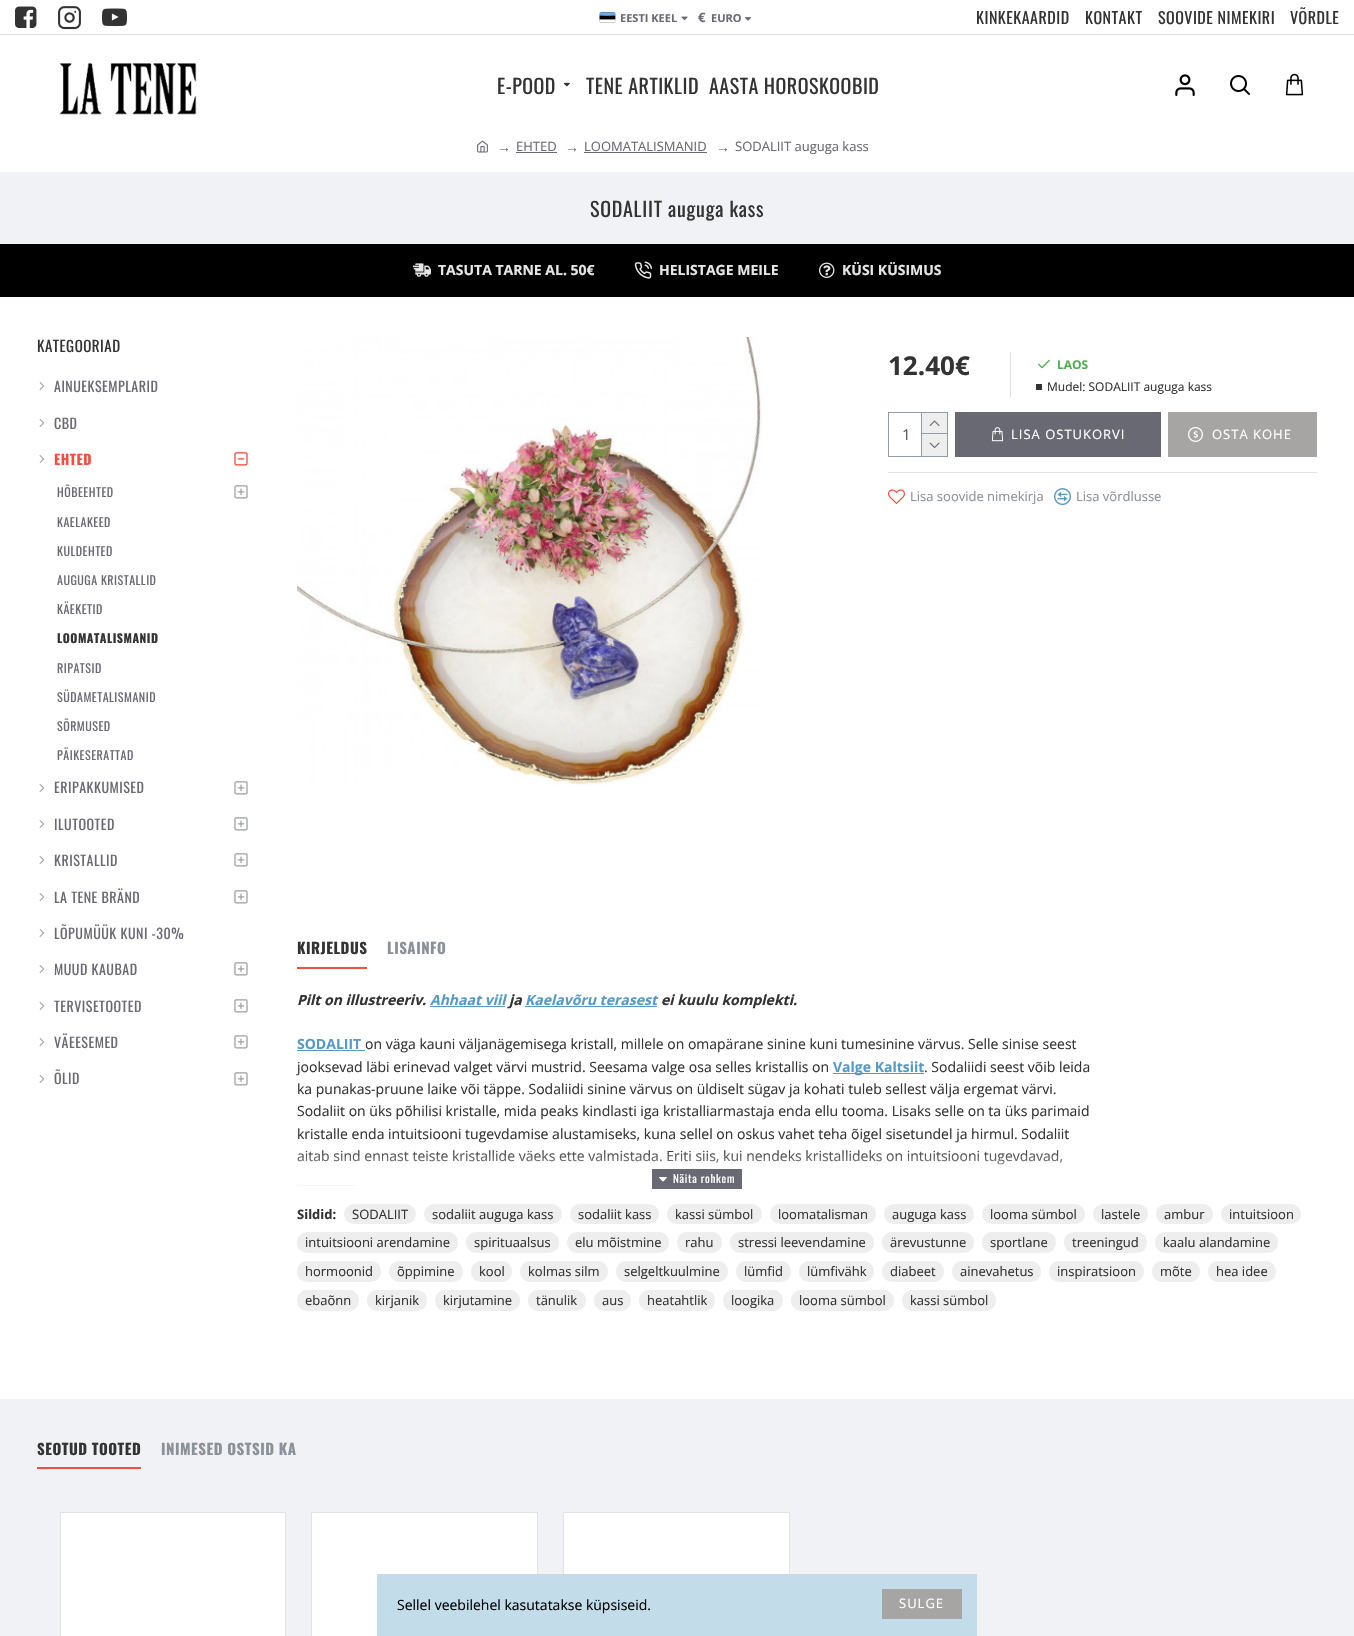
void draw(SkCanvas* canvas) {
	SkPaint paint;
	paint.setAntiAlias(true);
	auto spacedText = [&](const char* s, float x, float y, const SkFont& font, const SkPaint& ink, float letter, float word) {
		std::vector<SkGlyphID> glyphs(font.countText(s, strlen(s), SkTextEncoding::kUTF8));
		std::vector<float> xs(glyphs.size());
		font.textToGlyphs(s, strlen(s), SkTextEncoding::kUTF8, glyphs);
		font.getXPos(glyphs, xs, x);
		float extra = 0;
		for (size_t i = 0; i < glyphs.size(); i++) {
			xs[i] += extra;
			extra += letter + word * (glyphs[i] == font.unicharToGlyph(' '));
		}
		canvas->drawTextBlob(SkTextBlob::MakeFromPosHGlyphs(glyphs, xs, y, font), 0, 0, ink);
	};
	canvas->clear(0xffffffff);
	canvas->drawImageRect(SkImages::DeferredFromEncodedData(SkData::MakeFromFileName("img1.png")), SkRect::MakeXYWH(15, 6, 22, 22), SkSamplingOptions());
	canvas->drawImageRect(SkImages::DeferredFromEncodedData(SkData::MakeFromFileName("img2.png")), SkRect::MakeXYWH(58, 6, 23, 24), SkSamplingOptions());
	canvas->drawImageRect(SkImages::DeferredFromEncodedData(SkData::MakeFromFileName("img3.png")), SkRect::MakeXYWH(102, 8, 25, 19), SkSamplingOptions());
	canvas->drawImageRect(SkImages::DeferredFromEncodedData(SkData::MakeFromFileName("img4.png")), SkRect::MakeXYWH(599, 12, 17, 11), SkSamplingOptions());
	SkFont f1(fontMgr->matchFamilyStyle("Open Sans", SkFontStyle::Bold()), 11);
	f1.setSubpixel(true);
	paint.setColor(0xff696973);
	canvas->drawString("EESTI KEEL", 620, 22, f1, paint);
	canvas->drawImageRect(SkImages::DeferredFromEncodedData(SkData::MakeFromFileName("img5.png")), SkRect::MakeXYWH(681, 16, 7, 5), SkSamplingOptions());
	SkFont f2(fontMgr->matchFamilyStyle("Open Sans", SkFontStyle::Bold()), 13);
	f2.setSubpixel(true);
	canvas->drawString("€", 698, 22, f2, paint);
	canvas->drawString("EURO", 711, 22, f1, paint);
	canvas->drawImageRect(SkImages::DeferredFromEncodedData(SkData::MakeFromFileName("img6.png")), SkRect::MakeXYWH(744, 17, 8, 4), SkSamplingOptions());
	SkFont f3(fontMgr->matchFamilyStyle("Oswald", SkFontStyle::Normal()), 16);
	f3.setSubpixel(true);
	paint.setColor(0xff333333);
	spacedText("KINKEKAARDID", 976, 24, f3, paint, 0.5, 0);
	spacedText("KONTAKT", 1085, 24, f3, paint, 0.5, 0);
	spacedText("SOOVIDE NIMEKIRI", 1158, 24, f3, paint, 0.5, 0);
	spacedText("VÕRDLE", 1290, 24, f3, paint, 0.5, 0);
	canvas->drawImageRect(SkImages::DeferredFromEncodedData(SkData::MakeFromFileName("img7.png")), SkRect::MakeXYWH(59, 63, 138, 52), SkSamplingOptions());
	SkFont f4(fontMgr->matchFamilyStyle("Oswald", SkFontStyle::Normal()), 20);
	f4.setSubpixel(true);
	spacedText("E-POOD", 497, 94, f4, paint, 0.5, 0);
	canvas->drawImageRect(SkImages::DeferredFromEncodedData(SkData::MakeFromFileName("img8.png")), SkRect::MakeXYWH(563, 82, 7, 5), SkSamplingOptions());
	spacedText("TENE ARTIKLID", 586, 94, f4, paint, 0.5, 0);
	spacedText("AASTA HOROSKOOBID", 709, 94, f4, paint, 0.5, 0);
	canvas->drawImageRect(SkImages::DeferredFromEncodedData(SkData::MakeFromFileName("img9.png")), SkRect::MakeXYWH(1175, 74, 20, 22), SkSamplingOptions());
	canvas->drawImageRect(SkImages::DeferredFromEncodedData(SkData::MakeFromFileName("img10.png")), SkRect::MakeXYWH(1230, 75, 20, 20), SkSamplingOptions());
	canvas->drawImageRect(SkImages::DeferredFromEncodedData(SkData::MakeFromFileName("img11.png")), SkRect::MakeXYWH(1285, 73, 19, 23), SkSamplingOptions());
	paint.setColor(0xffe2e2e2);
	canvas->drawRect(SkRect::MakeXYWH(0, 34, 1354, 1), paint);
	canvas->drawImageRect(SkImages::DeferredFromEncodedData(SkData::MakeFromFileName("img12.png")), SkRect::MakeXYWH(477, 140, 11, 13), SkSamplingOptions());
	SkFont f5(fontMgr->matchFamilyStyle("Liberation Serif", SkFontStyle::Normal()), 14);
	f5.setSubpixel(true);
	paint.setColor(0xff696973);
	canvas->drawString("→", 497, 152, f5, paint);
	SkFont f6(fontMgr->matchFamilyStyle("Open Sans", SkFontStyle::Normal()), 13);
	f6.setSubpixel(true);
	canvas->drawString("EHTED", 516, 151, f6, paint);
	canvas->drawRect(SkRect::MakeXYWH(516, 152, 41, 1), paint);
	canvas->drawString("→", 565, 152, f5, paint);
	canvas->drawString("LOOMATALISMANID", 584, 151, f6, paint);
	canvas->drawRect(SkRect::MakeXYWH(584, 152, 123, 1), paint);
	canvas->drawString("→", 716, 152, f5, paint);
	canvas->drawString("SODALIIT auguga kass", 735, 151, f6, paint);
	paint.setColor(0xfff0f2f5);
	canvas->drawRect(SkRect::MakeXYWH(0, 172, 1354, 72), paint);
	paint.setColor(0xff333333);
	spacedText("SODALIIT auguga kass", 590, 217, f4, paint, 0.75, 0);
	paint.setColor(0xff000000);
	canvas->drawRect(SkRect::MakeXYWH(0, 244, 1354, 53), paint);
	canvas->drawImageRect(SkImages::DeferredFromEncodedData(SkData::MakeFromFileName("img13.png")), SkRect::MakeXYWH(413, 263, 18, 14), SkSamplingOptions());
	SkFont f7(fontMgr->matchFamilyStyle("Open Sans", SkFontStyle::Bold()), 14);
	f7.setSubpixel(true);
	paint.setColor(0xffe6e6e6);
	canvas->drawString("TASUTA TARNE AL. 50€", 438, 275, f7, paint);
	canvas->drawImageRect(SkImages::DeferredFromEncodedData(SkData::MakeFromFileName("img14.png")), SkRect::MakeXYWH(634, 261, 18, 18), SkSamplingOptions());
	canvas->drawString("HELISTAGE MEILE", 659, 275, f7, paint);
	canvas->drawImageRect(SkImages::DeferredFromEncodedData(SkData::MakeFromFileName("img15.png")), SkRect::MakeXYWH(819, 262, 16, 16), SkSamplingOptions());
	canvas->drawString("KÜSI KÜSIMUS", 842, 275, f7, paint);
	SkFont f8(fontMgr->matchFamilyStyle("Oswald", SkFontStyle::Normal()), 15);
	f8.setSubpixel(true);
	paint.setColor(0xff333333);
	spacedText("KATEGOORIAD", 37, 352, f8, paint, 0.5, 0);
	canvas->drawImageRect(SkImages::DeferredFromEncodedData(SkData::MakeFromFileName("img16.png")), SkRect::MakeXYWH(39, 382, 5, 8), SkSamplingOptions());
	SkFont f9(fontMgr->matchFamilyStyle("Oswald", SkFontStyle::Normal()), 14);
	f9.setSubpixel(true);
	paint.setColor(0xff696973);
	spacedText("AINUEKSEMPLARID", 54, 392, f9, paint, 0.5, 0);
	canvas->drawImageRect(SkImages::DeferredFromEncodedData(SkData::MakeFromFileName("img16.png")), SkRect::MakeXYWH(39, 419, 5, 8), SkSamplingOptions());
	spacedText("CBD", 54, 429, f9, paint, 0.5, 0);
	canvas->drawImageRect(SkImages::DeferredFromEncodedData(SkData::MakeFromFileName("img16.png")), SkRect::MakeXYWH(39, 455, 5, 8), SkSamplingOptions());
	SkFont f10(fontMgr->matchFamilyStyle("Oswald", SkFontStyle::Bold()), 14);
	f10.setSubpixel(true);
	paint.setColor(0xffef5042);
	spacedText("EHTED", 54, 465, f10, paint, 0.5, 0);
	canvas->drawImageRect(SkImages::DeferredFromEncodedData(SkData::MakeFromFileName("img17.png")), SkRect::MakeXYWH(234, 452, 14, 14), SkSamplingOptions());
	SkFont f11(fontMgr->matchFamilyStyle("Oswald", SkFontStyle::Normal()), 12);
	f11.setSubpixel(true);
	paint.setColor(0xff696973);
	spacedText("HÕBEEHTED", 57, 497, f11, paint, 0.5, 0);
	canvas->drawImageRect(SkImages::DeferredFromEncodedData(SkData::MakeFromFileName("img18.png")), SkRect::MakeXYWH(234, 485, 14, 14), SkSamplingOptions());
	spacedText("KAELAKEED", 57, 527, f11, paint, 0.5, 0);
	spacedText("KULDEHTED", 57, 556, f11, paint, 0.5, 0);
	spacedText("AUGUGA KRISTALLID", 57, 585, f11, paint, 0.5, 0);
	spacedText("KÄEKETID", 57, 614, f11, paint, 0.5, 0);
	SkFont f12(fontMgr->matchFamilyStyle("Oswald", SkFontStyle::Bold()), 12);
	f12.setSubpixel(true);
	paint.setColor(0xff333333);
	spacedText("LOOMATALISMANID", 57, 643, f12, paint, 0.5, 0);
	paint.setColor(0xff696973);
	spacedText("RIPATSID", 57, 673, f11, paint, 0.5, 0);
	spacedText("SÜDAMETALISMANID", 57, 702, f11, paint, 0.5, 0);
	spacedText("SÕRMUSED", 57, 731, f11, paint, 0.5, 0);
	spacedText("PÄIKESERATTAD", 57, 760, f11, paint, 0.5, 0);
	canvas->drawImageRect(SkImages::DeferredFromEncodedData(SkData::MakeFromFileName("img16.png")), SkRect::MakeXYWH(39, 784, 5, 8), SkSamplingOptions());
	spacedText("ERIPAKKUMISED", 54, 793, f9, paint, 0.5, 0);
	canvas->drawImageRect(SkImages::DeferredFromEncodedData(SkData::MakeFromFileName("img18.png")), SkRect::MakeXYWH(234, 781, 14, 14), SkSamplingOptions());
	canvas->drawImageRect(SkImages::DeferredFromEncodedData(SkData::MakeFromFileName("img16.png")), SkRect::MakeXYWH(39, 820, 5, 8), SkSamplingOptions());
	spacedText("ILUTOOTED", 54, 830, f9, paint, 0.5, 0);
	canvas->drawImageRect(SkImages::DeferredFromEncodedData(SkData::MakeFromFileName("img18.png")), SkRect::MakeXYWH(234, 817, 14, 14), SkSamplingOptions());
	canvas->drawImageRect(SkImages::DeferredFromEncodedData(SkData::MakeFromFileName("img16.png")), SkRect::MakeXYWH(39, 856, 5, 8), SkSamplingOptions());
	spacedText("KRISTALLID", 54, 866, f9, paint, 0.5, 0);
	canvas->drawImageRect(SkImages::DeferredFromEncodedData(SkData::MakeFromFileName("img18.png")), SkRect::MakeXYWH(234, 853, 14, 14), SkSamplingOptions());
	canvas->drawImageRect(SkImages::DeferredFromEncodedData(SkData::MakeFromFileName("img16.png")), SkRect::MakeXYWH(39, 893, 5, 8), SkSamplingOptions());
	spacedText("LA TENE BRÄND", 54, 903, f9, paint, 0.5, 0);
	canvas->drawImageRect(SkImages::DeferredFromEncodedData(SkData::MakeFromFileName("img18.png")), SkRect::MakeXYWH(234, 890, 14, 14), SkSamplingOptions());
	canvas->drawImageRect(SkImages::DeferredFromEncodedData(SkData::MakeFromFileName("img16.png")), SkRect::MakeXYWH(39, 929, 5, 8), SkSamplingOptions());
	spacedText("LÕPUMÜÜK KUNI -30%", 54, 939, f9, paint, 0.5, 0);
	canvas->drawImageRect(SkImages::DeferredFromEncodedData(SkData::MakeFromFileName("img16.png")), SkRect::MakeXYWH(39, 965, 5, 8), SkSamplingOptions());
	spacedText("MUUD KAUBAD", 54, 975, f9, paint, 0.5, 0);
	canvas->drawImageRect(SkImages::DeferredFromEncodedData(SkData::MakeFromFileName("img18.png")), SkRect::MakeXYWH(234, 962, 14, 14), SkSamplingOptions());
	canvas->drawImageRect(SkImages::DeferredFromEncodedData(SkData::MakeFromFileName("img16.png")), SkRect::MakeXYWH(39, 1002, 5, 8), SkSamplingOptions());
	spacedText("TERVISETOOTED", 54, 1012, f9, paint, 0.5, 0);
	canvas->drawImageRect(SkImages::DeferredFromEncodedData(SkData::MakeFromFileName("img18.png")), SkRect::MakeXYWH(234, 999, 14, 14), SkSamplingOptions());
	canvas->drawImageRect(SkImages::DeferredFromEncodedData(SkData::MakeFromFileName("img16.png")), SkRect::MakeXYWH(39, 1038, 5, 8), SkSamplingOptions());
	spacedText("VÄEESEMED", 54, 1048, f9, paint, 0.5, 0);
	canvas->drawImageRect(SkImages::DeferredFromEncodedData(SkData::MakeFromFileName("img18.png")), SkRect::MakeXYWH(234, 1035, 14, 14), SkSamplingOptions());
	canvas->drawImageRect(SkImages::DeferredFromEncodedData(SkData::MakeFromFileName("img16.png")), SkRect::MakeXYWH(39, 1075, 5, 8), SkSamplingOptions());
	spacedText("ÕLID", 54, 1084, f9, paint, 0.5, 0);
	canvas->drawImageRect(SkImages::DeferredFromEncodedData(SkData::MakeFromFileName("img18.png")), SkRect::MakeXYWH(234, 1072, 14, 14), SkSamplingOptions());
	canvas->drawImageRect(SkImages::DeferredFromEncodedData(SkData::MakeFromFileName("img19.png")), SkRect::MakeXYWH(297, 337, 465, 449), SkSamplingOptions());
	SkFont f13(fontMgr->matchFamilyStyle("Open Sans", SkFontStyle::Bold()), 26);
	f13.setSubpixel(true);
	paint.setColor(0xff333333);
	canvas->drawString("12.40€", 888, 375, f13, paint);
	paint.setColor(0xffe2e2e2);
	canvas->drawRect(SkRect::MakeXYWH(1010, 352, 1, 45), paint);
	canvas->drawImageRect(SkImages::DeferredFromEncodedData(SkData::MakeFromFileName("img20.png")), SkRect::MakeXYWH(1038, 359, 12, 10), SkSamplingOptions());
	SkFont f14(fontMgr->matchFamilyStyle("Open Sans", SkFontStyle::Bold()), 12);
	f14.setSubpixel(true);
	paint.setColor(0xff50ad55);
	canvas->drawString("LAOS", 1057, 369, f14, paint);
	paint.setColor(0xff333333);
	canvas->drawRect(SkRect::MakeXYWH(1036, 384, 6, 6), paint);
	SkFont f15(fontMgr->matchFamilyStyle("Open Sans", SkFontStyle::Normal()), 12);
	f15.setSubpixel(true);
	canvas->drawString("Mudel: SODALIIT auguga kass", 1047, 391, f15, paint);
	paint.setStroke(true);
	paint.setStrokeWidth(1);
	paint.setColor(0xff8f9da6);
	canvas->drawRect(SkRect::MakeXYWH(888.5, 412.5, 59, 44), paint);
	SkFont f16(fontMgr->matchFamilyStyle("Open Sans", SkFontStyle::Normal()), 15);
	f16.setSubpixel(true);
	paint.setStroke(false);
	paint.setColor(0xff555555);
	canvas->drawString("1", 902, 440, f16, paint);
	paint.setColor(0xff8f9da6);
	canvas->drawRect(SkRect::MakeXYWH(921, 413, 1, 43), paint);
	paint.setColor(0xffeeeeee);
	canvas->drawRect(SkRect::MakeXYWH(922, 413, 25, 20), paint);
	paint.setColor(0xff8f9da6);
	canvas->drawRect(SkRect::MakeXYWH(922, 433, 25, 1), paint);
	canvas->drawImageRect(SkImages::DeferredFromEncodedData(SkData::MakeFromFileName("img21.png")), SkRect::MakeXYWH(929, 420, 11, 6), SkSamplingOptions());
	paint.setColor(0xffeeeeee);
	canvas->drawRect(SkRect::MakeXYWH(922, 434, 25, 22), paint);
	canvas->drawImageRect(SkImages::DeferredFromEncodedData(SkData::MakeFromFileName("img22.png")), SkRect::MakeXYWH(929, 442, 11, 6), SkSamplingOptions());
	paint.setColor(0xff696973);
	canvas->drawRect(SkRect::MakeXYWH(955, 412, 206, 45), paint);
	canvas->drawImageRect(SkImages::DeferredFromEncodedData(SkData::MakeFromFileName("img23.png")), SkRect::MakeXYWH(991, 427, 13, 15), SkSamplingOptions());
	paint.setColor(0xffffffff);
	spacedText("LISA OSTUKORVI", 1011, 439, f6, paint, 1, 0);
	paint.setColor(0xffa7a4a4);
	canvas->drawRect(SkRect::MakeXYWH(1168, 412, 149, 45), paint);
	canvas->drawImageRect(SkImages::DeferredFromEncodedData(SkData::MakeFromFileName("img24.png")), SkRect::MakeXYWH(1188, 427, 15, 15), SkSamplingOptions());
	paint.setColor(0xffffffff);
	spacedText("OSTA KOHE", 1212, 439, f6, paint, 1, 0);
	paint.setColor(0xffe2e2e2);
	canvas->drawRect(SkRect::MakeXYWH(888, 472, 429, 1), paint);
	canvas->drawImageRect(SkImages::DeferredFromEncodedData(SkData::MakeFromFileName("img25.png")), SkRect::MakeXYWH(888, 489, 17, 15), SkSamplingOptions());
	paint.setColor(0xff8b9198);
	canvas->drawString("Lisa soovide nimekirja", 910, 501, f6, paint);
	canvas->drawImageRect(SkImages::DeferredFromEncodedData(SkData::MakeFromFileName("img26.png")), SkRect::MakeXYWH(1054, 488, 17, 18), SkSamplingOptions());
	canvas->drawString("Lisa võrdlusse", 1076, 501, f6, paint);
	paint.setColor(0xffef5042);
	canvas->drawRect(SkRect::MakeXYWH(297, 967, 70, 2), paint);
	SkFont f17(fontMgr->matchFamilyStyle("Oswald", SkFontStyle::Bold()), 15);
	f17.setSubpixel(true);
	paint.setColor(0xff333333);
	spacedText("KIRJELDUS", 297, 954, f17, paint, 0.5, 0);
	paint.setColor(0xff8b9198);
	spacedText("LISAINFO", 387, 954, f17, paint, 0.5, 0);
	SkFont f18(fontMgr->matchFamilyStyle("Open Sans", SkFontStyle::BoldItalic()), 14);
	f18.setSubpixel(true);
	paint.setColor(0xff333333);
	canvas->drawString("Pilt on illustreeriv.", 297, 1005, f18, paint);
	paint.setColor(0xff579ac1);
	canvas->drawString("Ahhaat viil", 430, 1005, f18, paint);
	canvas->drawRect(SkRect::MakeXYWH(430, 1006, 75, 1), paint);
	paint.setColor(0xff333333);
	canvas->drawString("ja", 509, 1005, f18, paint);
	paint.setColor(0xff579ac1);
	canvas->drawString("Kaelavõru terasest", 525, 1005, f18, paint);
	canvas->drawRect(SkRect::MakeXYWH(525, 1006, 132, 1), paint);
	paint.setColor(0xff333333);
	canvas->drawString("ei kuulu komplekti.", 661, 1005, f18, paint);
	paint.setColor(0xff579ac1);
	canvas->drawString("SODALIIT", 297, 1049, f7, paint);
	canvas->drawRect(SkRect::MakeXYWH(297, 1050, 68, 1), paint);
	SkFont f19(fontMgr->matchFamilyStyle("Open Sans", SkFontStyle::Normal()), 14);
	f19.setSubpixel(true);
	paint.setColor(0xff333333);
	canvas->drawString("on väga kauni väljanägemisega kristall, millele on omapärane sinine kuni tumesinine värvus. Selle sinise seest", 365, 1049, f19, paint);
	canvas->drawString("jooksevad läbi erinevad valget värvi mustrid. Seesama valge osa selles kristallis on", 297, 1072, f19, paint);
	paint.setColor(0xff579ac1);
	canvas->drawRect(SkRect::MakeXYWH(833, 1073, 91, 1), paint);
	canvas->drawString("Valge Kaltsiit", 833, 1072, f7, paint);
	paint.setColor(0xff333333);
	canvas->drawString(". Sodaliidi seest võib leida", 924, 1072, f19, paint);
	canvas->drawString("ka punakas-pruune laike või täppe. Sodaliidi sinine värvus on üldiselt sügav ja kohati tuleb sellest välja ergemat värvi.", 297, 1094, f19, paint);
	canvas->drawString("Sodaliit on üks põhilisi kristalle, mida peaks kindlasti iga kristalliarmastaja enda ellu tooma. Lisaks selle on ta üks parimaid", 297, 1116, f19, paint);
	canvas->drawString("kristalle enda intuitsiooni tugevdamise alustamiseks, kuna sellel on oskus vahet teha õigel sisetundel ja hirmul. Sodaliit", 297, 1139, f19, paint);
	canvas->drawString("aitab sind ennast teiste kristallide väeks ette valmistada. Eriti siis, kui nendeks kristallideks on intuitsiooni tugevdavad,", 297, 1161, f19, paint);
	paint.setColor(0xff579ac1);
	canvas->drawRect(SkRect::MakeXYWH(297, 1185, 61, 1), paint);
	{
		const SkColor colors[] = {0x00ffffff, 0xffffffff};
		const float stops[] = {0, 1};
		const SkPoint ends[] = {{697, 1149}, {697, 1189}};
		paint.setShader(SkGradientShader::MakeLinear(ends, colors, stops, 2, SkTileMode::kClamp));
		paint.setAlpha(255);
	}
	canvas->drawRect(SkRect::MakeXYWH(297, 1150, 765, 36), paint);
	paint.setShader(nullptr);
	paint.setColor(0xff696973);
	canvas->drawRect(SkRect::MakeXYWH(652, 1169, 90, 20), paint);
	canvas->drawImageRect(SkImages::DeferredFromEncodedData(SkData::MakeFromFileName("img27.png")), SkRect::MakeXYWH(659, 1177, 8, 5), SkSamplingOptions());
	SkFont f20(fontMgr->matchFamilyStyle("Oswald", SkFontStyle::Normal()), 11);
	f20.setSubpixel(true);
	paint.setColor(0xffffffff);
	spacedText("Näita rohkem", 673, 1183, f20, paint, 0.75, 0);
	paint.setColor(0xff333333);
	canvas->drawString("Sildid:", 297, 1219, f2, paint);
	paint.setColor(0xffeeeeee);
	canvas->drawRoundRect(SkRect::MakeXYWH(344, 1204, 72, 20), 10, 10, paint);
	paint.setColor(0xff333333);
	canvas->drawString("SODALIIT", 352, 1219, f6, paint);
	paint.setColor(0xffeeeeee);
	canvas->drawRoundRect(SkRect::MakeXYWH(424, 1204, 138, 20), 10, 10, paint);
	paint.setColor(0xff333333);
	canvas->drawString("sodaliit auguga kass", 432, 1219, f6, paint);
	paint.setColor(0xffeeeeee);
	canvas->drawRoundRect(SkRect::MakeXYWH(570, 1204, 89, 20), 10, 10, paint);
	paint.setColor(0xff333333);
	canvas->drawString("sodaliit kass", 578, 1219, f6, paint);
	paint.setColor(0xffeeeeee);
	canvas->drawRoundRect(SkRect::MakeXYWH(667, 1204, 95, 20), 10, 10, paint);
	paint.setColor(0xff333333);
	canvas->drawString("kassi sümbol", 675, 1219, f6, paint);
	paint.setColor(0xffeeeeee);
	canvas->drawRoundRect(SkRect::MakeXYWH(770, 1204, 106, 20), 10, 10, paint);
	paint.setColor(0xff333333);
	canvas->drawString("loomatalisman", 778, 1219, f6, paint);
	paint.setColor(0xffeeeeee);
	canvas->drawRoundRect(SkRect::MakeXYWH(884, 1204, 90, 20), 10, 10, paint);
	paint.setColor(0xff333333);
	canvas->drawString("auguga kass", 892, 1219, f6, paint);
	paint.setColor(0xffeeeeee);
	canvas->drawRoundRect(SkRect::MakeXYWH(982, 1204, 103, 20), 10, 10, paint);
	paint.setColor(0xff333333);
	canvas->drawString("looma sümbol", 990, 1219, f6, paint);
	paint.setColor(0xffeeeeee);
	canvas->drawRoundRect(SkRect::MakeXYWH(1093, 1204, 55, 20), 10, 10, paint);
	paint.setColor(0xff333333);
	canvas->drawString("lastele", 1101, 1219, f6, paint);
	paint.setColor(0xffeeeeee);
	canvas->drawRoundRect(SkRect::MakeXYWH(1156, 1204, 57, 20), 10, 10, paint);
	paint.setColor(0xff333333);
	canvas->drawString("ambur", 1164, 1219, f6, paint);
	paint.setColor(0xffeeeeee);
	canvas->drawRoundRect(SkRect::MakeXYWH(1221, 1204, 80, 20), 10, 10, paint);
	paint.setColor(0xff333333);
	canvas->drawString("intuitsioon", 1229, 1219, f6, paint);
	paint.setColor(0xffeeeeee);
	canvas->drawRoundRect(SkRect::MakeXYWH(297, 1232, 161, 21), 10, 10, paint);
	paint.setColor(0xff333333);
	canvas->drawString("intuitsiooni arendamine", 305, 1247, f6, paint);
	paint.setColor(0xffeeeeee);
	canvas->drawRoundRect(SkRect::MakeXYWH(466, 1232, 93, 21), 10, 10, paint);
	paint.setColor(0xff333333);
	canvas->drawString("spirituaalsus", 474, 1247, f6, paint);
	paint.setColor(0xffeeeeee);
	canvas->drawRoundRect(SkRect::MakeXYWH(567, 1232, 102, 21), 10, 10, paint);
	paint.setColor(0xff333333);
	canvas->drawString("elu mõistmine", 575, 1247, f6, paint);
	paint.setColor(0xffeeeeee);
	canvas->drawRoundRect(SkRect::MakeXYWH(677, 1232, 45, 21), 10, 10, paint);
	paint.setColor(0xff333333);
	canvas->drawString("rahu", 685, 1247, f6, paint);
	paint.setColor(0xffeeeeee);
	canvas->drawRoundRect(SkRect::MakeXYWH(730, 1232, 144, 21), 10, 10, paint);
	paint.setColor(0xff333333);
	canvas->drawString("stressi leevendamine", 738, 1247, f6, paint);
	paint.setColor(0xffeeeeee);
	canvas->drawRoundRect(SkRect::MakeXYWH(882, 1232, 92, 21), 10, 10, paint);
	paint.setColor(0xff333333);
	canvas->drawString("ärevustunne", 890, 1247, f6, paint);
	paint.setColor(0xffeeeeee);
	canvas->drawRoundRect(SkRect::MakeXYWH(982, 1232, 74, 21), 10, 10, paint);
	paint.setColor(0xff333333);
	canvas->drawString("sportlane", 990, 1247, f6, paint);
	paint.setColor(0xffeeeeee);
	canvas->drawRoundRect(SkRect::MakeXYWH(1064, 1232, 83, 21), 10, 10, paint);
	paint.setColor(0xff333333);
	canvas->drawString("treeningud", 1072, 1247, f6, paint);
	paint.setColor(0xffeeeeee);
	canvas->drawRoundRect(SkRect::MakeXYWH(1155, 1232, 123, 21), 10, 10, paint);
	paint.setColor(0xff333333);
	canvas->drawString("kaalu alandamine", 1163, 1247, f6, paint);
	paint.setColor(0xffeeeeee);
	canvas->drawRoundRect(SkRect::MakeXYWH(297, 1261, 84, 21), 10, 10, paint);
	paint.setColor(0xff333333);
	canvas->drawString("hormoonid", 305, 1276, f6, paint);
	paint.setColor(0xffeeeeee);
	canvas->drawRoundRect(SkRect::MakeXYWH(389, 1261, 74, 21), 10, 10, paint);
	paint.setColor(0xff333333);
	canvas->drawString("õppimine", 397, 1276, f6, paint);
	paint.setColor(0xffeeeeee);
	canvas->drawRoundRect(SkRect::MakeXYWH(471, 1261, 41, 21), 10, 10, paint);
	paint.setColor(0xff333333);
	canvas->drawString("kool", 479, 1276, f6, paint);
	paint.setColor(0xffeeeeee);
	canvas->drawRoundRect(SkRect::MakeXYWH(520, 1261, 88, 21), 10, 10, paint);
	paint.setColor(0xff333333);
	canvas->drawString("kolmas silm", 528, 1276, f6, paint);
	paint.setColor(0xffeeeeee);
	canvas->drawRoundRect(SkRect::MakeXYWH(616, 1261, 112, 21), 10, 10, paint);
	paint.setColor(0xff333333);
	canvas->drawString("selgeltkuulmine", 624, 1276, f6, paint);
	paint.setColor(0xffeeeeee);
	canvas->drawRoundRect(SkRect::MakeXYWH(736, 1261, 55, 21), 10, 10, paint);
	paint.setColor(0xff333333);
	canvas->drawString("lümfid", 744, 1276, f6, paint);
	paint.setColor(0xffeeeeee);
	canvas->drawRoundRect(SkRect::MakeXYWH(799, 1261, 75, 21), 10, 10, paint);
	paint.setColor(0xff333333);
	canvas->drawString("lümfivähk", 807, 1276, f6, paint);
	paint.setColor(0xffeeeeee);
	canvas->drawRoundRect(SkRect::MakeXYWH(882, 1261, 62, 21), 10, 10, paint);
	paint.setColor(0xff333333);
	canvas->drawString("diabeet", 890, 1276, f6, paint);
	paint.setColor(0xffeeeeee);
	canvas->drawRoundRect(SkRect::MakeXYWH(952, 1261, 89, 21), 10, 10, paint);
	paint.setColor(0xff333333);
	canvas->drawString("ainevahetus", 960, 1276, f6, paint);
	paint.setColor(0xffeeeeee);
	canvas->drawRoundRect(SkRect::MakeXYWH(1049, 1261, 95, 21), 10, 10, paint);
	paint.setColor(0xff333333);
	canvas->drawString("inspiratsioon", 1057, 1276, f6, paint);
	paint.setColor(0xffeeeeee);
	canvas->drawRoundRect(SkRect::MakeXYWH(1152, 1261, 48, 21), 10, 10, paint);
	paint.setColor(0xff333333);
	canvas->drawString("mõte", 1160, 1276, f6, paint);
	paint.setColor(0xffeeeeee);
	canvas->drawRoundRect(SkRect::MakeXYWH(1208, 1261, 68, 21), 10, 10, paint);
	paint.setColor(0xff333333);
	canvas->drawString("hea idee", 1216, 1276, f6, paint);
	paint.setColor(0xffeeeeee);
	canvas->drawRoundRect(SkRect::MakeXYWH(297, 1290, 62, 21), 10, 10, paint);
	paint.setColor(0xff333333);
	canvas->drawString("ebaõnn", 305, 1305, f6, paint);
	paint.setColor(0xffeeeeee);
	canvas->drawRoundRect(SkRect::MakeXYWH(367, 1290, 60, 21), 10, 10, paint);
	paint.setColor(0xff333333);
	canvas->drawString("kirjanik", 375, 1305, f6, paint);
	paint.setColor(0xffeeeeee);
	canvas->drawRoundRect(SkRect::MakeXYWH(435, 1290, 85, 21), 10, 10, paint);
	paint.setColor(0xff333333);
	canvas->drawString("kirjutamine", 443, 1305, f6, paint);
	paint.setColor(0xffeeeeee);
	canvas->drawRoundRect(SkRect::MakeXYWH(528, 1290, 58, 21), 10, 10, paint);
	paint.setColor(0xff333333);
	canvas->drawString("tänulik", 536, 1305, f6, paint);
	paint.setColor(0xffeeeeee);
	canvas->drawRoundRect(SkRect::MakeXYWH(594, 1290, 37, 21), 10, 10, paint);
	paint.setColor(0xff333333);
	canvas->drawString("aus", 602, 1305, f6, paint);
	paint.setColor(0xffeeeeee);
	canvas->drawRoundRect(SkRect::MakeXYWH(639, 1290, 76, 21), 10, 10, paint);
	paint.setColor(0xff333333);
	canvas->drawString("heatahtlik", 647, 1305, f6, paint);
	paint.setColor(0xffeeeeee);
	canvas->drawRoundRect(SkRect::MakeXYWH(723, 1290, 60, 21), 10, 10, paint);
	paint.setColor(0xff333333);
	canvas->drawString("loogika", 731, 1305, f6, paint);
	paint.setColor(0xffeeeeee);
	canvas->drawRoundRect(SkRect::MakeXYWH(791, 1290, 103, 21), 10, 10, paint);
	paint.setColor(0xff333333);
	canvas->drawString("looma sümbol", 799, 1305, f6, paint);
	paint.setColor(0xffeeeeee);
	canvas->drawRoundRect(SkRect::MakeXYWH(902, 1290, 94, 21), 10, 10, paint);
	paint.setColor(0xff333333);
	canvas->drawString("kassi sümbol", 910, 1305, f6, paint);
	paint.setColor(0xfff0f2f5);
	canvas->drawRect(SkRect::MakeXYWH(0, 1399, 1354, 237), paint);
	paint.setColor(0xffef5042);
	canvas->drawRect(SkRect::MakeXYWH(37, 1467, 104, 2), paint);
	paint.setColor(0xff333333);
	spacedText("SEOTUD TOOTED", 37, 1455, f17, paint, 0.5, 0);
	paint.setColor(0xff8b9198);
	spacedText("INIMESED OSTSID KA", 161, 1455, f17, paint, 0.5, 0);
	paint.setColor(0xffffffff);
	canvas->drawRect(SkRect::MakeXYWH(60.5, 1512.5, 225, 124), paint);
	paint.setStroke(true);
	paint.setColor(0xffe2e2e2);
	canvas->drawRect(SkRect::MakeXYWH(60.5, 1512.5, 225, 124), paint);
	paint.setStroke(false);
	paint.setColor(0xffffffff);
	canvas->drawRect(SkRect::MakeXYWH(311.5, 1512.5, 226, 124), paint);
	paint.setStroke(true);
	paint.setColor(0xffe2e2e2);
	canvas->drawRect(SkRect::MakeXYWH(311.5, 1512.5, 226, 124), paint);
	paint.setStroke(false);
	paint.setColor(0xffffffff);
	canvas->drawRect(SkRect::MakeXYWH(564, 1513, 225, 61), paint);
	paint.setStroke(true);
	paint.setColor(0xffe2e2e2);
	canvas->drawRect(SkRect::MakeXYWH(563.5, 1512.5, 226, 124), paint);
	paint.setStroke(false);
	paint.setColor(0xffc2dcea);
	canvas->drawRect(SkRect::MakeXYWH(377, 1574, 600, 62), paint);
	paint.setColor(0xff000000);
	canvas->drawString("Sellel veebilehel kasutatakse küpsiseid.", 397, 1610, f19, paint);
	paint.setColor(0xffa7a4a4);
	canvas->drawRect(SkRect::MakeXYWH(882, 1589, 80, 30), paint);
	paint.setColor(0xffffffff);
	spacedText("SULGE", 899, 1608, f6, paint, 1, 0);
}
